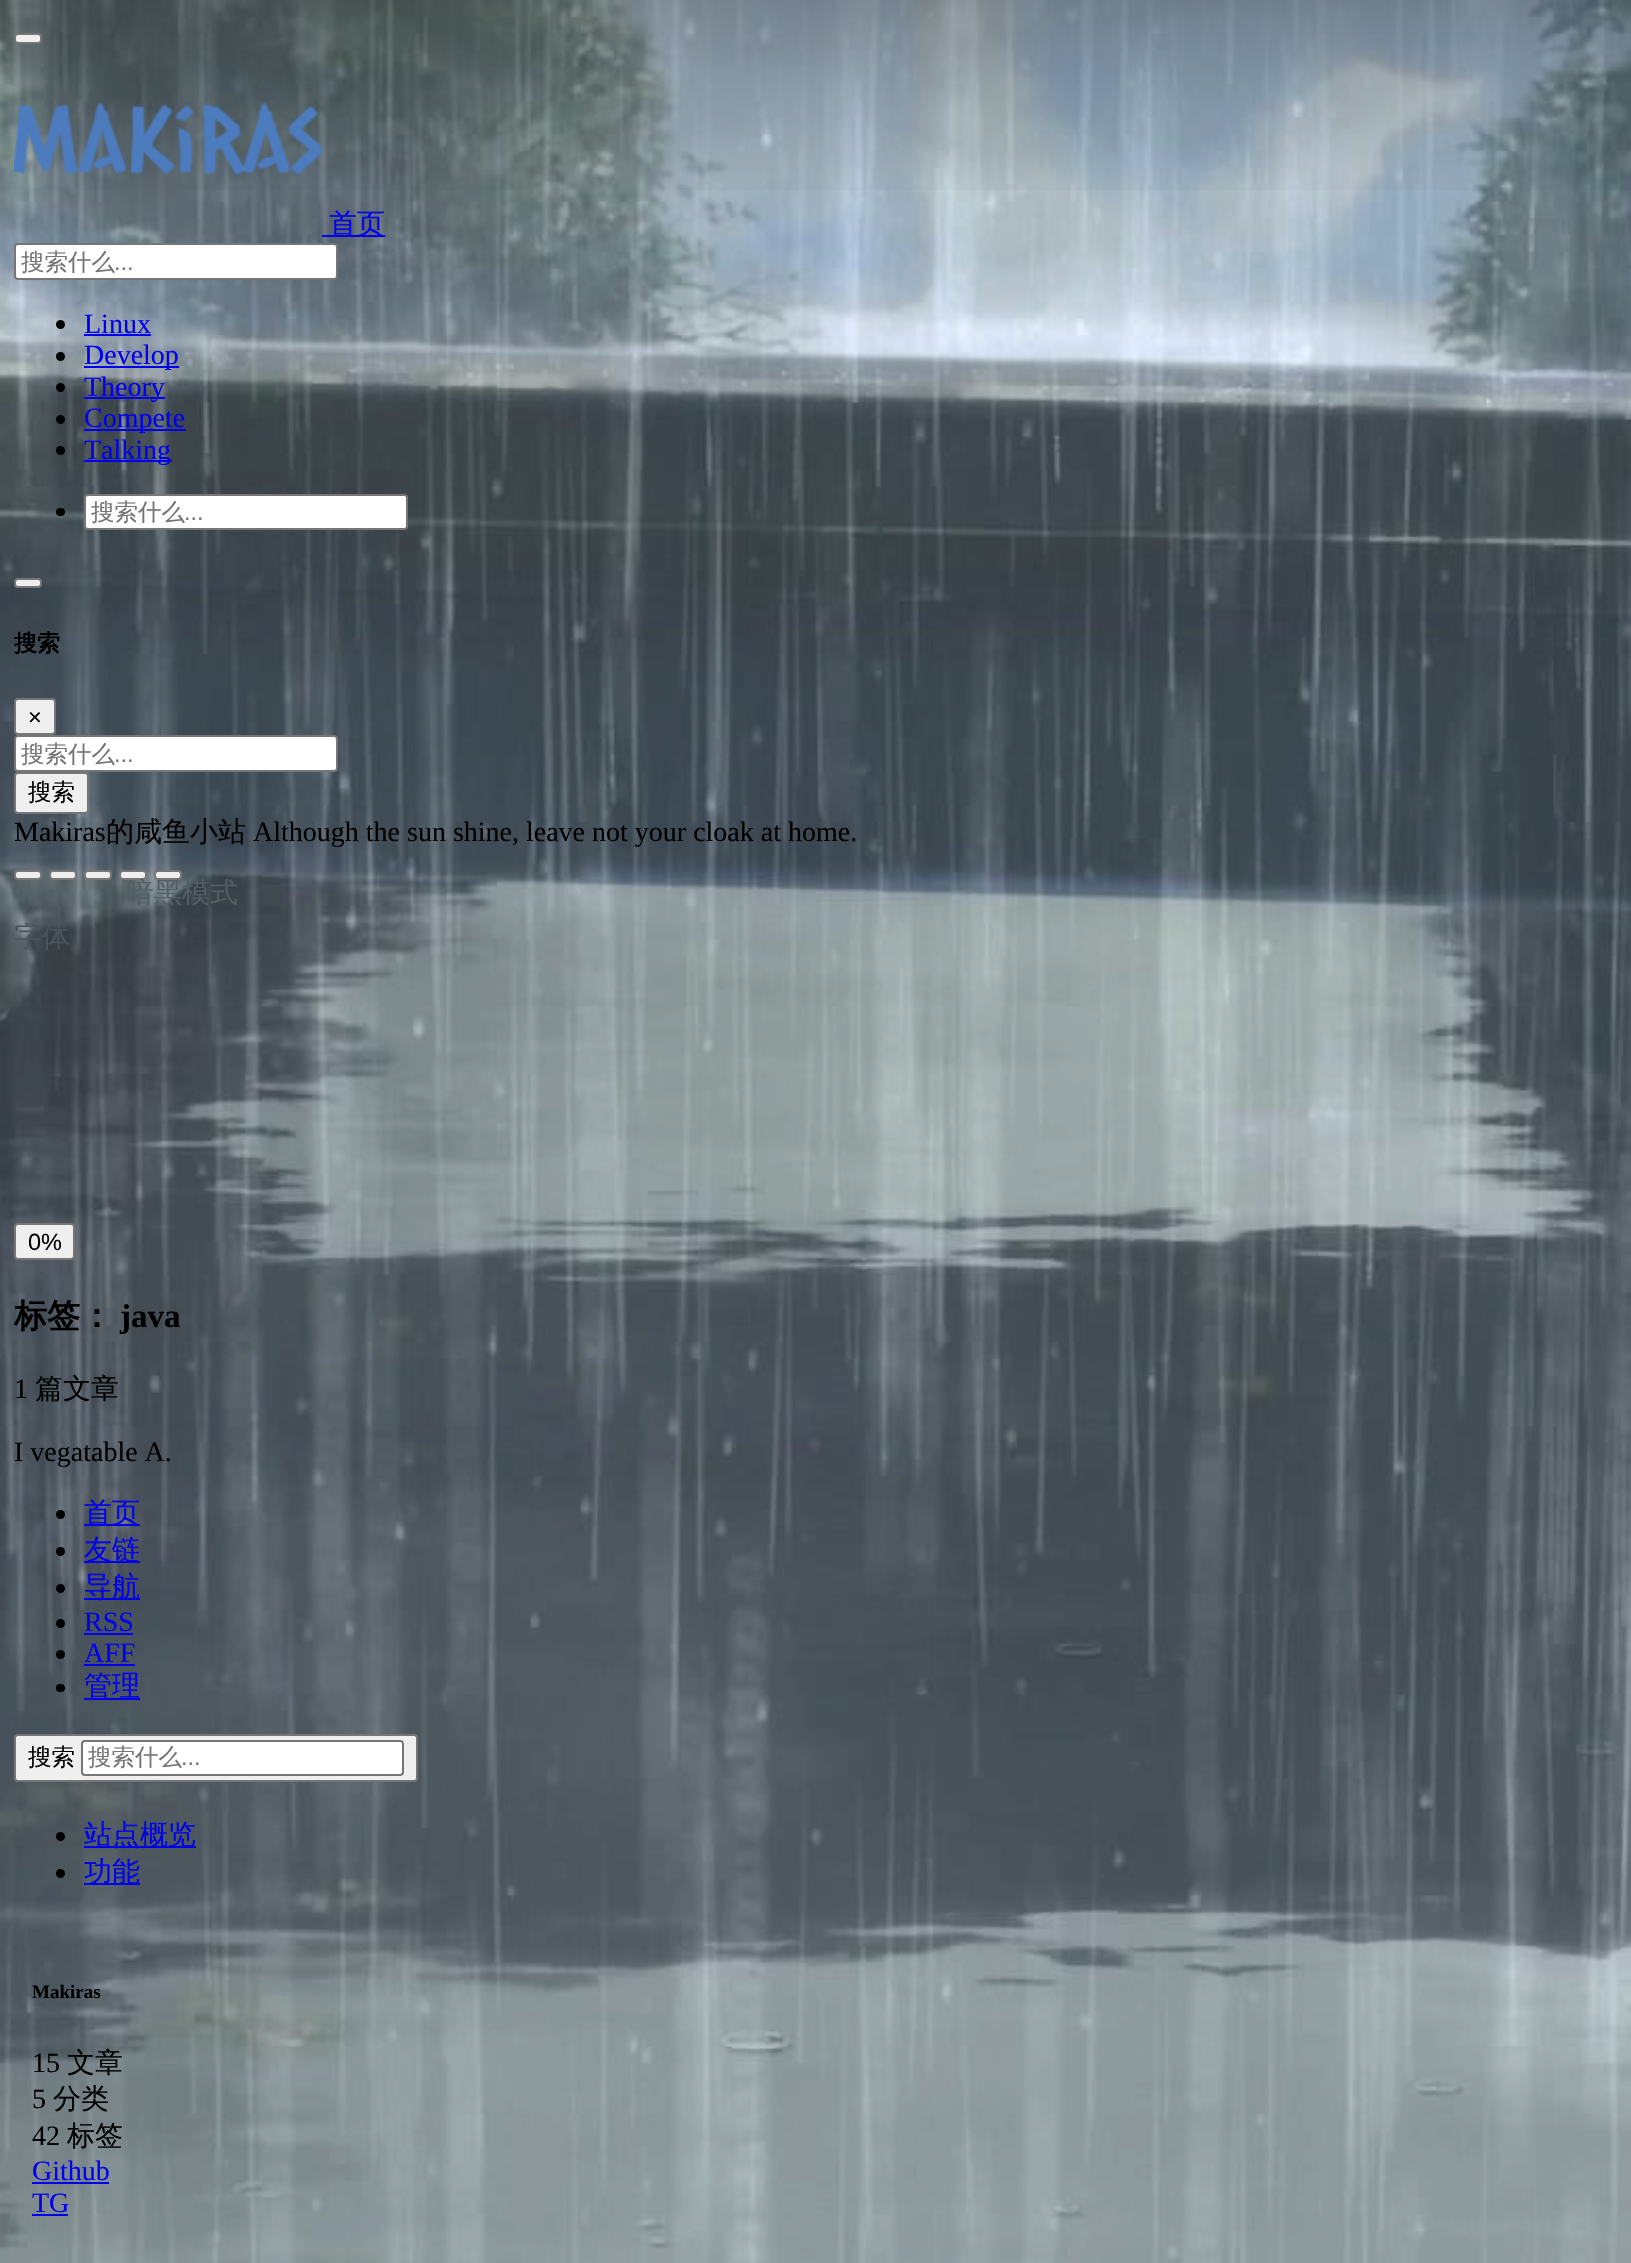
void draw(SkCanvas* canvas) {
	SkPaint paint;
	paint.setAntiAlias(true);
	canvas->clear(0xffffffff);
	canvas->drawImageRect(SkImages::DeferredFromEncodedData(SkData::MakeFromFileName("img2.png")), SkRect::MakeXYWH(0, 0, 1631, 2263), SkSamplingOptions());
	{
		const SkColor colors[] = {0x40000000, 0x26000000, 0x00000000};
		const float stops[] = {0, 0.35, 1};
		const SkPoint ends[] = {{816, 0}, {816, 210}};
		paint.setShader(SkGradientShader::MakeLinear(ends, colors, stops, 3, SkTileMode::kClamp));
		paint.setAlpha(255);
	}
	canvas->drawRect(SkRect::MakeXYWH(0, 0, 1631, 190), paint);
	paint.setShader(nullptr);
	paint.setColor(0xffefefef);
	canvas->drawRoundRect(SkRect::MakeXYWH(15, 34, 26, 9), 3, 3, paint);
	paint.setStroke(true);
	paint.setStrokeWidth(2);
	paint.setColor(0xff767676);
	canvas->drawRoundRect(SkRect::MakeXYWH(15, 34, 26, 9), 3, 3, paint);
	canvas->drawImageRect(SkImages::DeferredFromEncodedData(SkData::MakeFromFileName("img1.png")), SkRect::MakeXYWH(14, 102, 308, 74), SkSamplingOptions());
	paint.setStroke(false);
	paint.setColor(0xff0000ee);
	canvas->drawRect(SkRect::MakeXYWH(322, 235, 63, 2), paint);
	SkFont f1(fontMgr->matchFamilyStyle("WenQuanYi Zen Hei", SkFontStyle(500, SkFontStyle::kNormal_Width, SkFontStyle::kUpright_Slant)), 28);
	f1.setSubpixel(true);
	canvas->drawString("首页", 329, 233, f1, paint);
	paint.setColor(0xffffffff);
	canvas->drawRoundRect(SkRect::MakeXYWH(15, 244, 322, 35), 3, 3, paint);
	paint.setStroke(true);
	paint.setColor(0xff767676);
	canvas->drawRoundRect(SkRect::MakeXYWH(15, 244, 322, 35), 3, 3, paint);
	SkFont f2(fontMgr->matchFamilyStyle("WenQuanYi Zen Hei", SkFontStyle(500, SkFontStyle::kNormal_Width, SkFontStyle::kUpright_Slant)), 23.5);
	f2.setSubpixel(true);
	paint.setStroke(false);
	paint.setColor(0xff757575);
	canvas->drawString("搜索什么", 21, 270, f2, paint);
	SkFont f3(fontMgr->matchFamilyStyle("Liberation Sans", SkFontStyle::Normal()), 23.5);
	f3.setSubpixel(true);
	canvas->drawString("...", 114, 270, f3, paint);
	paint.setColor(0xff000000);
	canvas->drawCircle(60.5, 324.5, 4.5, paint);
	SkFont f4(fontMgr->matchFamilyStyle("Liberation Serif", SkFontStyle::Normal()), 28);
	f4.setSubpixel(true);
	paint.setColor(0xff0000ee);
	canvas->drawString("Linux", 84, 333, f4, paint);
	canvas->drawRect(SkRect::MakeXYWH(84, 334, 67, 2), paint);
	paint.setColor(0xff000000);
	canvas->drawCircle(60.5, 356.5, 4.5, paint);
	paint.setColor(0xff0000ee);
	canvas->drawRect(SkRect::MakeXYWH(84, 366, 95, 2), paint);
	canvas->drawString("Develop", 84, 364, f4, paint);
	paint.setColor(0xff000000);
	canvas->drawCircle(60.5, 387.5, 4.5, paint);
	paint.setColor(0xff0000ee);
	canvas->drawRect(SkRect::MakeXYWH(84, 397, 81, 2), paint);
	canvas->drawString("Theory", 84, 396, f4, paint);
	paint.setColor(0xff000000);
	canvas->drawCircle(60.5, 419.5, 4.5, paint);
	paint.setColor(0xff0000ee);
	canvas->drawRect(SkRect::MakeXYWH(84, 429, 102, 2), paint);
	canvas->drawString("Compete", 84, 427, f4, paint);
	paint.setColor(0xff000000);
	canvas->drawCircle(60.5, 450.5, 4.5, paint);
	paint.setColor(0xff0000ee);
	canvas->drawRect(SkRect::MakeXYWH(84, 460, 88, 2), paint);
	canvas->drawString("Talking", 84, 459, f4, paint);
	paint.setColor(0xff000000);
	canvas->drawRoundRect(SkRect::MakeXYWH(56, 508, 9, 8), 4, 4, paint);
	paint.setColor(0xffffffff);
	canvas->drawRoundRect(SkRect::MakeXYWH(85, 495, 322, 34), 3, 3, paint);
	paint.setStroke(true);
	paint.setColor(0xff767676);
	canvas->drawRoundRect(SkRect::MakeXYWH(85, 495, 322, 34), 3, 3, paint);
	paint.setStroke(false);
	paint.setColor(0xff757575);
	canvas->drawString("搜索什么", 91, 520, f2, paint);
	canvas->drawString("...", 184, 520, f3, paint);
	paint.setColor(0xffefefef);
	canvas->drawRoundRect(SkRect::MakeXYWH(15, 579, 26, 8), 3, 3, paint);
	paint.setStroke(true);
	paint.setColor(0xff767676);
	canvas->drawRoundRect(SkRect::MakeXYWH(15, 579, 26, 8), 3, 3, paint);
	SkFont f5(fontMgr->matchFamilyStyle("WenQuanYi Zen Hei", SkFontStyle::Bold()), 23);
	f5.setSubpixel(true);
	paint.setStroke(false);
	paint.setColor(0xff000000);
	canvas->drawString("搜索", 14, 651, f5, paint);
	paint.setColor(0xffefefef);
	canvas->drawRoundRect(SkRect::MakeXYWH(15, 699, 40, 35), 3, 3, paint);
	paint.setStroke(true);
	paint.setColor(0xff767676);
	canvas->drawRoundRect(SkRect::MakeXYWH(15, 699, 40, 35), 3, 3, paint);
	paint.setStroke(false);
	paint.setColor(0xff000000);
	canvas->drawString("×", 28, 725, f3, paint);
	paint.setColor(0xffffffff);
	canvas->drawRoundRect(SkRect::MakeXYWH(15, 736, 322, 35), 3, 3, paint);
	paint.setStroke(true);
	paint.setColor(0xff767676);
	canvas->drawRoundRect(SkRect::MakeXYWH(15, 736, 322, 35), 3, 3, paint);
	paint.setStroke(false);
	paint.setColor(0xff757575);
	canvas->drawString("搜索什么", 21, 762, f2, paint);
	canvas->drawString("...", 114, 762, f3, paint);
	paint.setColor(0xffefefef);
	canvas->drawRoundRect(SkRect::MakeXYWH(15, 773, 73, 40), 3, 3, paint);
	paint.setStroke(true);
	paint.setColor(0xff767676);
	canvas->drawRoundRect(SkRect::MakeXYWH(15, 773, 73, 40), 3, 3, paint);
	paint.setStroke(false);
	paint.setColor(0xff000000);
	canvas->drawString("搜索", 28, 800, f2, paint);
	canvas->drawString("Makiras", 14, 841, f4, paint);
	canvas->drawString("的咸鱼小站", 106, 841, f1, paint);
	canvas->drawString("Although the sun shine, leave not your cloak at home.", 253, 841, f4, paint);
	paint.setColor(0xffefefef);
	canvas->drawRoundRect(SkRect::MakeXYWH(15, 871, 26, 8), 3, 3, paint);
	paint.setStroke(true);
	paint.setColor(0xff767676);
	canvas->drawRoundRect(SkRect::MakeXYWH(15, 871, 26, 8), 3, 3, paint);
	paint.setStroke(false);
	paint.setColor(0xffefefef);
	canvas->drawRoundRect(SkRect::MakeXYWH(50, 871, 26, 8), 3, 3, paint);
	paint.setStroke(true);
	paint.setColor(0xff767676);
	canvas->drawRoundRect(SkRect::MakeXYWH(50, 871, 26, 8), 3, 3, paint);
	paint.setStroke(false);
	paint.setColor(0xffefefef);
	canvas->drawRoundRect(SkRect::MakeXYWH(85, 871, 26, 8), 3, 3, paint);
	paint.setStroke(true);
	paint.setColor(0xff767676);
	canvas->drawRoundRect(SkRect::MakeXYWH(85, 871, 26, 8), 3, 3, paint);
	paint.setStroke(false);
	paint.setColor(0xffefefef);
	canvas->drawRoundRect(SkRect::MakeXYWH(120, 871, 26, 8), 3, 3, paint);
	paint.setStroke(true);
	paint.setColor(0xff767676);
	canvas->drawRoundRect(SkRect::MakeXYWH(120, 871, 26, 8), 3, 3, paint);
	paint.setStroke(false);
	paint.setColor(0xffefefef);
	canvas->drawRoundRect(SkRect::MakeXYWH(155, 871, 26, 8), 3, 3, paint);
	paint.setStroke(true);
	paint.setColor(0xff767676);
	canvas->drawRoundRect(SkRect::MakeXYWH(155, 871, 26, 8), 3, 3, paint);
	paint.setStroke(false);
	paint.setColor(0xff515e64);
	canvas->drawString("暗黑模式", 126, 902, f1, paint);
	paint.setColor(0xff4a545a);
	canvas->drawString("字体", 14, 946, f1, paint);
	paint.setColor(0xffefefef);
	canvas->drawRoundRect(SkRect::MakeXYWH(15, 1224, 59, 35), 3, 3, paint);
	paint.setStroke(true);
	paint.setColor(0xff767676);
	canvas->drawRoundRect(SkRect::MakeXYWH(15, 1224, 59, 35), 3, 3, paint);
	paint.setStroke(false);
	paint.setColor(0xff000000);
	canvas->drawString("0%", 28, 1250, f3, paint);
	SkFont f6(fontMgr->matchFamilyStyle("WenQuanYi Zen Hei", SkFontStyle::Bold()), 33);
	f6.setSubpixel(true);
	canvas->drawString("标签：", 14, 1327, f6, paint);
	SkFont f7(fontMgr->matchFamilyStyle("Liberation Serif", SkFontStyle::Bold()), 33);
	f7.setSubpixel(true);
	canvas->drawString("java", 120, 1327, f7, paint);
	canvas->drawString("1", 14, 1398, f4, paint);
	canvas->drawString("篇文章", 35, 1398, f1, paint);
	canvas->drawString("I vegatable A.", 14, 1461, f4, paint);
	canvas->drawCircle(60.5, 1514.5, 4.5, paint);
	paint.setColor(0xff0000ee);
	canvas->drawRect(SkRect::MakeXYWH(84, 1524, 56, 2), paint);
	canvas->drawString("首页", 84, 1522, f1, paint);
	paint.setColor(0xff000000);
	canvas->drawCircle(60.5, 1551.5, 4.5, paint);
	paint.setColor(0xff0000ee);
	canvas->drawRect(SkRect::MakeXYWH(84, 1561, 56, 2), paint);
	canvas->drawString("友链", 84, 1559, f1, paint);
	paint.setColor(0xff000000);
	canvas->drawCircle(60.5, 1588.5, 4.5, paint);
	paint.setColor(0xff0000ee);
	canvas->drawRect(SkRect::MakeXYWH(84, 1598, 56, 2), paint);
	canvas->drawString("导航", 84, 1596, f1, paint);
	paint.setColor(0xff000000);
	canvas->drawCircle(60.5, 1623.5, 4.5, paint);
	paint.setColor(0xff0000ee);
	canvas->drawString("RSS", 84, 1631, f4, paint);
	canvas->drawRect(SkRect::MakeXYWH(84, 1633, 49, 2), paint);
	paint.setColor(0xff000000);
	canvas->drawCircle(60.5, 1654.5, 4.5, paint);
	paint.setColor(0xff0000ee);
	canvas->drawString("AFF", 84, 1662, f4, paint);
	canvas->drawRect(SkRect::MakeXYWH(84, 1664, 51, 2), paint);
	paint.setColor(0xff000000);
	canvas->drawRoundRect(SkRect::MakeXYWH(56, 1684, 9, 8), 4, 4, paint);
	paint.setColor(0xff0000ee);
	canvas->drawRect(SkRect::MakeXYWH(84, 1698, 56, 2), paint);
	canvas->drawString("管理", 84, 1695, f1, paint);
	paint.setColor(0xffefefef);
	canvas->drawRoundRect(SkRect::MakeXYWH(15, 1735, 402, 46), 3, 3, paint);
	paint.setStroke(true);
	paint.setColor(0xff767676);
	canvas->drawRoundRect(SkRect::MakeXYWH(15, 1735, 402, 46), 3, 3, paint);
	paint.setStroke(false);
	paint.setColor(0xff000000);
	canvas->drawString("搜索", 28, 1765, f2, paint);
	paint.setColor(0xffffffff);
	canvas->drawRoundRect(SkRect::MakeXYWH(82, 1741, 321, 34), 3, 3, paint);
	paint.setStroke(true);
	paint.setColor(0xff767676);
	canvas->drawRoundRect(SkRect::MakeXYWH(82, 1741, 321, 34), 3, 3, paint);
	paint.setStroke(false);
	paint.setColor(0xff757575);
	canvas->drawString("搜索什么", 88, 1765, f2, paint);
	canvas->drawString("...", 181, 1765, f3, paint);
	paint.setColor(0xff000000);
	canvas->drawCircle(60.5, 1836.5, 4.5, paint);
	paint.setColor(0xff0000ee);
	canvas->drawRect(SkRect::MakeXYWH(84, 1846, 112, 2), paint);
	canvas->drawString("站点概览", 84, 1844, f1, paint);
	paint.setColor(0xff000000);
	canvas->drawCircle(60.5, 1873.5, 4.5, paint);
	paint.setColor(0xff0000ee);
	canvas->drawRect(SkRect::MakeXYWH(84, 1883, 56, 2), paint);
	canvas->drawString("功能", 84, 1881, f1, paint);
	SkFont f8(fontMgr->matchFamilyStyle("Liberation Serif", SkFontStyle::Bold()), 19);
	f8.setSubpixel(true);
	paint.setColor(0xff000000);
	canvas->drawString("Makiras", 32, 1998, f8, paint);
	canvas->drawString("15", 32, 2072, f4, paint);
	canvas->drawString("文章", 67, 2072, f1, paint);
	canvas->drawString("5", 32, 2108, f4, paint);
	canvas->drawString("分类", 53, 2108, f1, paint);
	canvas->drawString("42", 32, 2145, f4, paint);
	canvas->drawString("标签", 67, 2145, f1, paint);
	paint.setColor(0xff0000ee);
	canvas->drawString("Github", 32, 2180, f4, paint);
	canvas->drawRect(SkRect::MakeXYWH(32, 2182, 77, 2), paint);
	canvas->drawString("TG", 32, 2212, f4, paint);
	canvas->drawRect(SkRect::MakeXYWH(32, 2214, 36, 2), paint);
}
